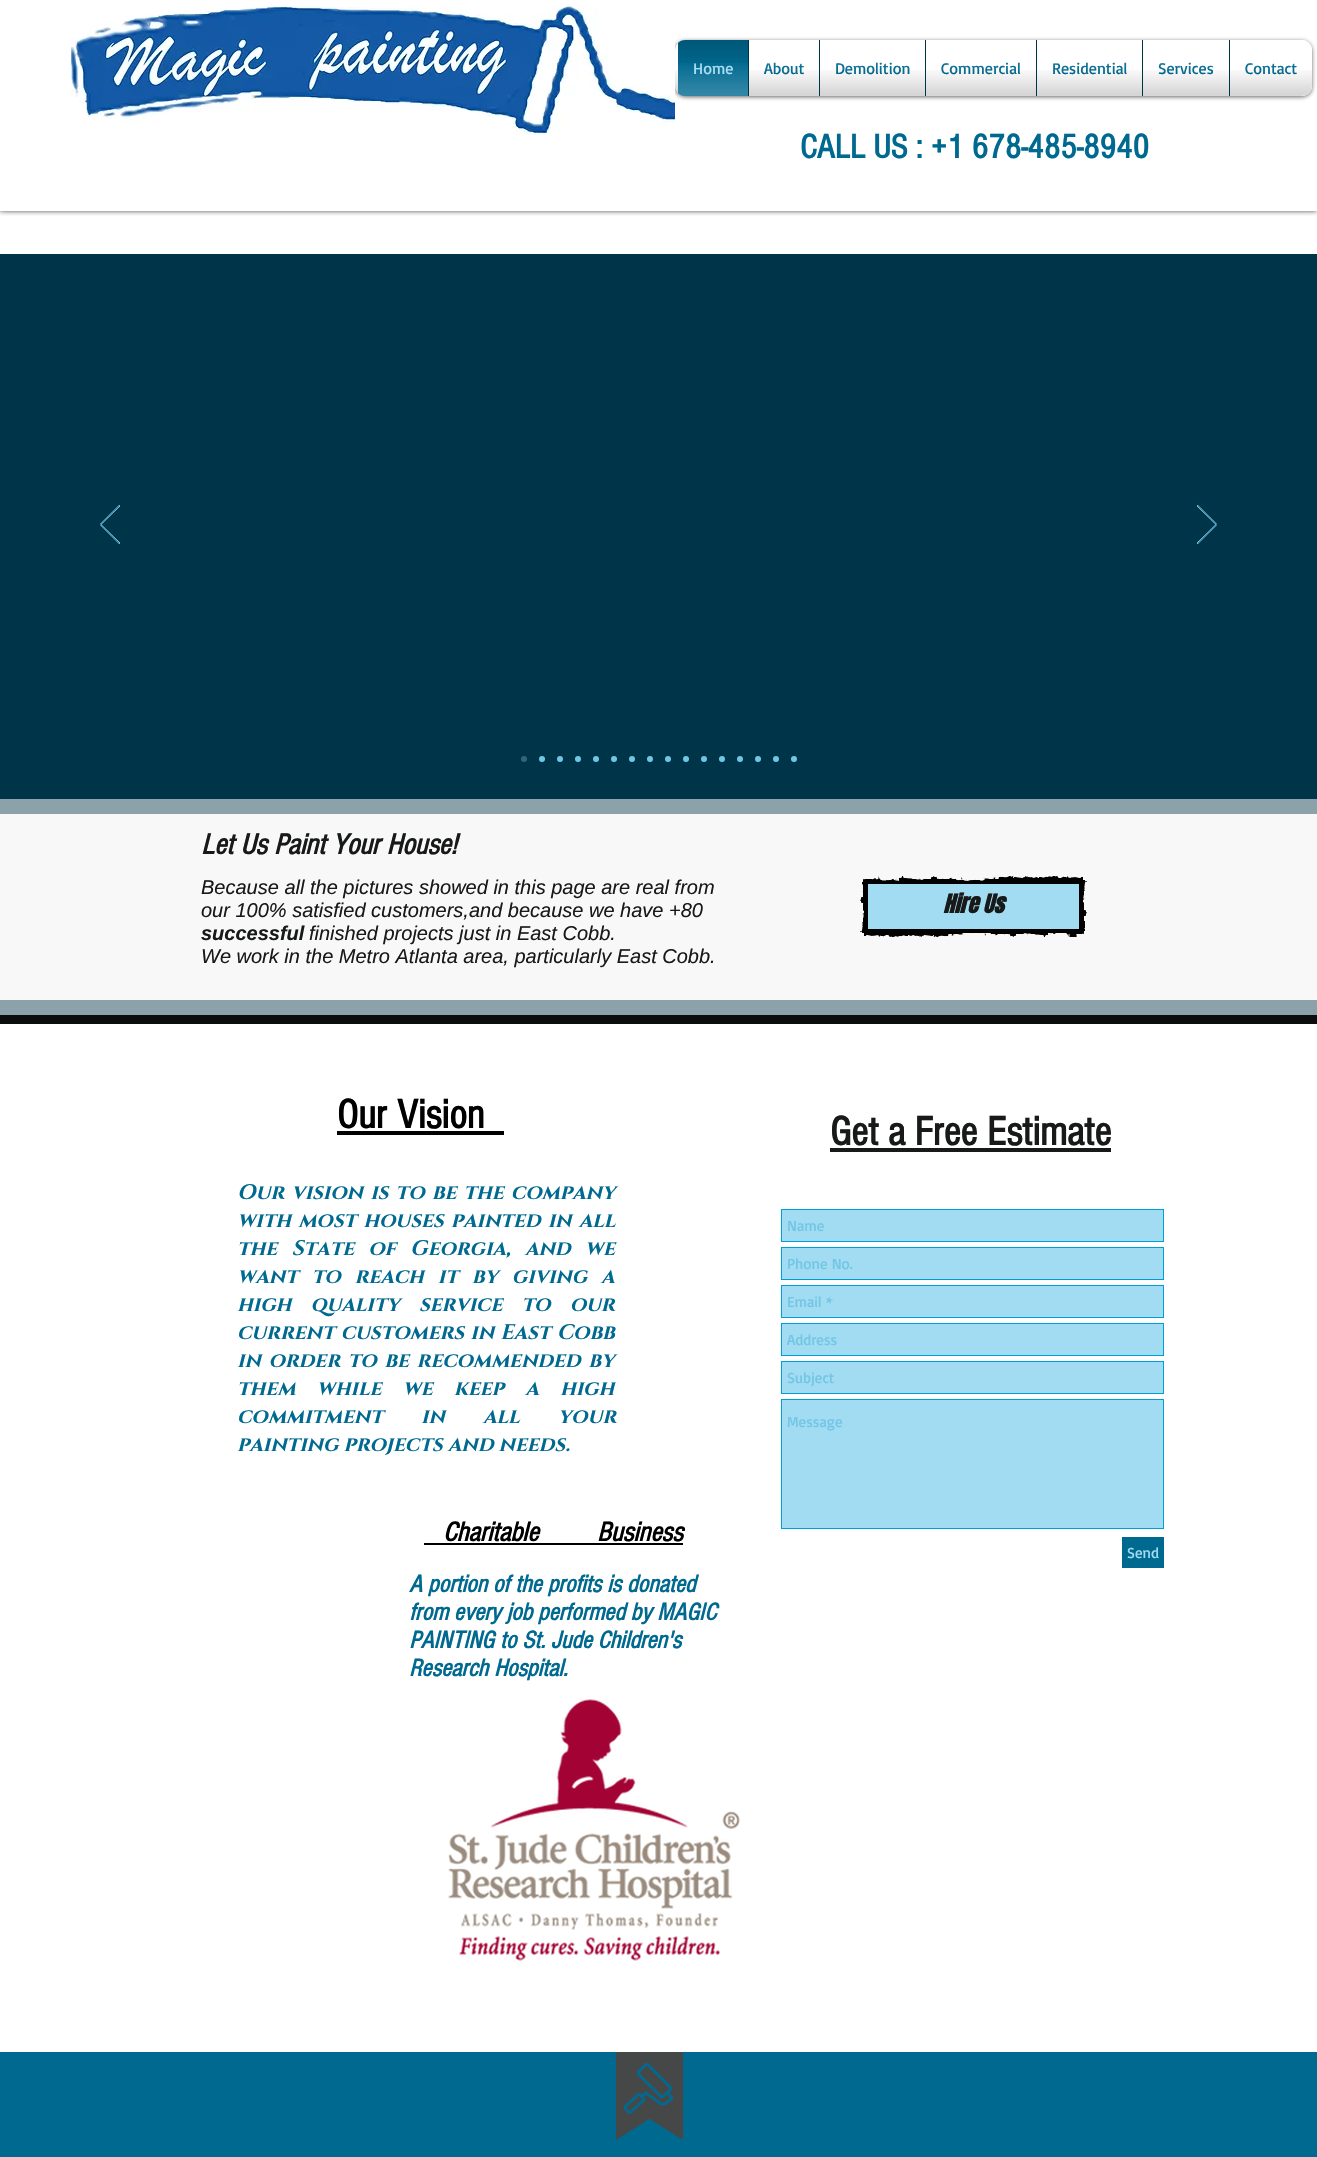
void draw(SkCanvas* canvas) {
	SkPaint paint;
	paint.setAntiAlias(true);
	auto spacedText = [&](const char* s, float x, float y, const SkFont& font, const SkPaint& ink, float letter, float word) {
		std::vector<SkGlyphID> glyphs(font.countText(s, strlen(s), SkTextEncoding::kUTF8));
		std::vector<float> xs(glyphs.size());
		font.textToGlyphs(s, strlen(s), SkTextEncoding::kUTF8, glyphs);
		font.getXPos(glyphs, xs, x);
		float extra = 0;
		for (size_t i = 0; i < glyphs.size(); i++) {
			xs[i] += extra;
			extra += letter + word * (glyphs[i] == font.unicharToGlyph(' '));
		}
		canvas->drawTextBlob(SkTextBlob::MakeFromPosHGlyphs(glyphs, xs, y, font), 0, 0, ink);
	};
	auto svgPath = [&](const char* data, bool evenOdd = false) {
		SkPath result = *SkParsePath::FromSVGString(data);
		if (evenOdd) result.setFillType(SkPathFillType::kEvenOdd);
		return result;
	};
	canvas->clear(0xffffffff);
	canvas->save();
	canvas->clipRect(SkRect::MakeXYWH(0, 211, 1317, 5));
	paint.setColor(0xb3000000);
	paint.setMaskFilter(SkMaskFilter::MakeBlur(kNormal_SkBlurStyle, 2.5));
	canvas->drawRect(SkRect::MakeXYWH(0, 0, 1317, 211), paint);
	paint.setMaskFilter(nullptr);
	canvas->restore();
	paint.setColor(0x99000000);
	paint.setMaskFilter(SkMaskFilter::MakeBlur(kNormal_SkBlurStyle, 2));
	canvas->drawRoundRect(SkRect::MakeXYWH(675, 41, 637, 56), 10, 10, paint);
	paint.setMaskFilter(nullptr);
	canvas->drawImageRect(SkImages::DeferredFromEncodedData(SkData::MakeFromFileName("img1.png")), SkRect::MakeXYWH(71, 4, 604, 131), SkSamplingOptions());
	paint.setColor(0xffffffff);
	canvas->drawRoundRect(SkRect::MakeXYWH(675, 40, 637, 56), 10, 10, paint);
	canvas->drawImageRect(SkImages::DeferredFromEncodedData(SkData::MakeFromFileName("img2.png")), SkRect::MakeXYWH(675, 70, 637, 26), SkSamplingOptions());
	canvas->save();
	canvas->clipPath(svgPath("M685 40H1302C1307.5 40 1312 44.5 1312 50V86C1312 91.5 1307.5 96 1302 96H685C679.5 96 675 91.5 675 86V50C675 44.5 679.5 40 685 40Z"), true);
	paint.setColor(0xff006990);
	canvas->drawRect(SkRect::MakeXYWH(678, 40, 70, 56), paint);
	canvas->restore();
	SkFont f1(fontMgr->matchFamilyStyle("Basic", SkFontStyle::Normal()), 16);
	f1.setSubpixel(true);
	paint.setColor(0xffa1dcf2);
	canvas->drawString("Home", 693, 74, f1, paint);
	canvas->drawImageRect(SkImages::DeferredFromEncodedData(SkData::MakeFromFileName("img3.png")), SkRect::MakeXYWH(678, 40, 70, 26), SkSamplingOptions());
	canvas->drawImageRect(SkImages::DeferredFromEncodedData(SkData::MakeFromFileName("img4.png")), SkRect::MakeXYWH(678, 63, 70, 33), SkSamplingOptions());
	paint.setColor(0xffffffff);
	canvas->drawRect(SkRect::MakeXYWH(749, 70, 70, 26), paint);
	paint.setColor(0xff003448);
	canvas->drawRect(SkRect::MakeXYWH(748, 40, 1, 56), paint);
	paint.setColor(0xff006990);
	canvas->drawString("About", 764, 74, f1, paint);
	canvas->drawImageRect(SkImages::DeferredFromEncodedData(SkData::MakeFromFileName("img5.png")), SkRect::MakeXYWH(764, 62, 40, 11), SkSamplingOptions());
	canvas->drawImageRect(SkImages::DeferredFromEncodedData(SkData::MakeFromFileName("img6.png")), SkRect::MakeXYWH(749, 70, 70, 26), SkSamplingOptions());
	paint.setColor(0xffffffff);
	canvas->drawRect(SkRect::MakeXYWH(820, 70, 105, 26), paint);
	paint.setColor(0xff003448);
	canvas->drawRect(SkRect::MakeXYWH(819, 40, 1, 56), paint);
	paint.setColor(0xff006990);
	canvas->drawString("Demolition", 835, 74, f1, paint);
	canvas->drawImageRect(SkImages::DeferredFromEncodedData(SkData::MakeFromFileName("img7.png")), SkRect::MakeXYWH(835, 62, 74, 11), SkSamplingOptions());
	canvas->drawImageRect(SkImages::DeferredFromEncodedData(SkData::MakeFromFileName("img8.png")), SkRect::MakeXYWH(820, 70, 105, 26), SkSamplingOptions());
	paint.setColor(0xffffffff);
	canvas->drawRect(SkRect::MakeXYWH(926, 70, 110, 26), paint);
	paint.setColor(0xff003448);
	canvas->drawRect(SkRect::MakeXYWH(925, 40, 1, 56), paint);
	paint.setColor(0xff006990);
	canvas->drawString("Commercial", 941, 74, f1, paint);
	canvas->drawImageRect(SkImages::DeferredFromEncodedData(SkData::MakeFromFileName("img9.png")), SkRect::MakeXYWH(941, 62, 78, 11), SkSamplingOptions());
	canvas->drawImageRect(SkImages::DeferredFromEncodedData(SkData::MakeFromFileName("img10.png")), SkRect::MakeXYWH(926, 70, 110, 26), SkSamplingOptions());
	paint.setColor(0xffffffff);
	canvas->drawRect(SkRect::MakeXYWH(1037, 70, 105, 26), paint);
	paint.setColor(0xff003448);
	canvas->drawRect(SkRect::MakeXYWH(1036, 40, 1, 56), paint);
	paint.setColor(0xff006990);
	canvas->drawString("Residential", 1052, 74, f1, paint);
	canvas->drawImageRect(SkImages::DeferredFromEncodedData(SkData::MakeFromFileName("img11.png")), SkRect::MakeXYWH(1052, 62, 74, 11), SkSamplingOptions());
	canvas->drawImageRect(SkImages::DeferredFromEncodedData(SkData::MakeFromFileName("img12.png")), SkRect::MakeXYWH(1037, 70, 105, 26), SkSamplingOptions());
	paint.setColor(0xffffffff);
	canvas->drawRect(SkRect::MakeXYWH(1143, 70, 86, 26), paint);
	paint.setColor(0xff003448);
	canvas->drawRect(SkRect::MakeXYWH(1142, 40, 1, 56), paint);
	paint.setColor(0xff006990);
	canvas->drawString("Services", 1158, 74, f1, paint);
	canvas->drawImageRect(SkImages::DeferredFromEncodedData(SkData::MakeFromFileName("img13.png")), SkRect::MakeXYWH(1158, 62, 55, 11), SkSamplingOptions());
	canvas->drawImageRect(SkImages::DeferredFromEncodedData(SkData::MakeFromFileName("img14.png")), SkRect::MakeXYWH(1143, 70, 86, 26), SkSamplingOptions());
	paint.setColor(0xffffffff);
	canvas->drawPath(svgPath("M1229 40H1302C1307.5 40 1312 44.5 1312 50V86C1312 91.5 1307.5 96 1302 96H1229Z"), paint);
	paint.setColor(0xff003448);
	canvas->drawRect(SkRect::MakeXYWH(1229, 40, 1, 56), paint);
	paint.setColor(0xff006990);
	canvas->drawString("Contact", 1245, 74, f1, paint);
	canvas->drawImageRect(SkImages::DeferredFromEncodedData(SkData::MakeFromFileName("img15.png")), SkRect::MakeXYWH(1245, 63, 51, 10), SkSamplingOptions());
	canvas->drawImageRect(SkImages::DeferredFromEncodedData(SkData::MakeFromFileName("img16.png")), SkRect::MakeXYWH(1230, 70, 82, 26), SkSamplingOptions());
	SkFont f2(fontMgr->matchFamilyStyle("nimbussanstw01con", SkFontStyle::Bold()), 35);
	f2.setSubpixel(true);
	canvas->drawString("CALL US : +1 678-485-8940", 800, 158, f2, paint);
	paint.setColor(0xff003448);
	canvas->drawRect(SkRect::MakeXYWH(0, 254, 1317, 545), paint);
	canvas->save();
	canvas->clipRect(SkRect::MakeXYWH(100, 505, 20, 40));
	paint.setStroke(true);
	paint.setStrokeWidth(1);
	paint.setColor(0xff72c6e5);
	canvas->drawPath(svgPath("M119.5 544L100 524.5L119.5 505L120 506L101 524.5L120 543Z"), paint);
	canvas->restore();
	canvas->save();
	canvas->clipRect(SkRect::MakeXYWH(1197, 505, 20, 40));
	canvas->drawPath(svgPath("M1197.5 544L1217 524.5L1197.5 505L1197 506L1216 524.5L1197 543Z"), paint);
	canvas->restore();
	paint.setStroke(false);
	paint.setColor(0xff30667b);
	canvas->drawCircle(524, 759, 3, paint);
	paint.setColor(0xff72c6e5);
	canvas->drawCircle(542, 759, 3, paint);
	canvas->drawCircle(560, 759, 3, paint);
	canvas->drawCircle(578, 759, 3, paint);
	canvas->drawCircle(596, 759, 3, paint);
	canvas->drawCircle(614, 759, 3, paint);
	canvas->drawCircle(632, 759, 3, paint);
	canvas->drawCircle(650, 759, 3, paint);
	canvas->drawCircle(668, 759, 3, paint);
	canvas->drawCircle(686, 759, 3, paint);
	canvas->drawCircle(704, 759, 3, paint);
	canvas->drawCircle(722, 759, 3, paint);
	canvas->drawCircle(740, 759, 3, paint);
	canvas->drawCircle(758, 759, 3, paint);
	canvas->drawCircle(776, 759, 3, paint);
	canvas->drawCircle(794, 759, 3, paint);
	paint.setColor(0xff0c0d0d);
	canvas->drawPath(svgPath("M-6 1015V1019C-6 1022-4 1024-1 1024H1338C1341 1024 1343 1022 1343 1019V813C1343 810 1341 808 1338 808H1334V1010C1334 1013 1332 1015 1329 1015Z"), paint);
	paint.setColor(0xfff8f8f8);
	canvas->drawRect(SkRect::MakeXYWH(0, 814, 1317, 186), paint);
	paint.setStroke(true);
	paint.setStrokeWidth(15);
	paint.setColor(0xff8ba2ab);
	canvas->drawPath(svgPath("M-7.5 806.5H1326.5V1007.5H-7.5Z"), paint);
	SkFont f3(fontMgr->matchFamilyStyle("nimbussanstw01con", SkFontStyle::BoldItalic()), 30);
	f3.setSubpixel(true);
	paint.setStroke(false);
	paint.setColor(0xff181919);
	canvas->drawString("Let Us Paint Your House!", 201, 854, f3, paint);
	SkFont f4(fontMgr->matchFamilyStyle("Liberation Sans", SkFontStyle::Italic()), 20);
	f4.setSubpixel(true);
	canvas->drawString("Because all the pictures showed in this page are real from", 201, 894, f4, paint);
	canvas->drawString("our 100% satisfied customers,and because we have +80", 201, 917, f4, paint);
	SkFont f5(fontMgr->matchFamilyStyle("Liberation Sans", SkFontStyle::BoldItalic()), 20);
	f5.setSubpixel(true);
	canvas->drawString("successful", 201, 940, f5, paint);
	canvas->drawString("finished projects just in East Cobb.", 309, 940, f4, paint);
	canvas->drawString("We work in the Metro Atlanta area, particularly East Cobb.", 201, 963, f4, paint);
	canvas->drawImageRect(SkImages::DeferredFromEncodedData(SkData::MakeFromFileName("img17.png")), SkRect::MakeXYWH(860, 876, 223, 57), SkSamplingOptions());
	canvas->drawImageRect(SkImages::DeferredFromEncodedData(SkData::MakeFromFileName("img18.png")), SkRect::MakeXYWH(864, 880, 223, 57), SkSamplingOptions());
	paint.setColor(0xffa1dcf2);
	canvas->drawRect(SkRect::MakeXYWH(868, 884, 211, 45), paint);
	SkFont f6(fontMgr->matchFamilyStyle("Anton", SkFontStyle::BoldItalic()), 22);
	f6.setSubpixel(true);
	paint.setColor(0xff181919);
	canvas->drawString("Hire Us", 943, 913, f6, paint);
	SkFont f7(fontMgr->matchFamilyStyle("nimbussanstw01con", SkFontStyle::Bold()), 42);
	f7.setSubpixel(true);
	paint.setColor(0xff000000);
	canvas->drawString("Our Vision", 337, 1128, f7, paint);
	canvas->drawRect(SkRect::MakeXYWH(337, 1131, 167, 4), paint);
	paint.setColor(0xff181919);
	canvas->drawString("Get a Free Estimate", 830, 1145, f7, paint);
	canvas->drawRect(SkRect::MakeXYWH(830, 1148, 281, 4), paint);
	SkFont f8(fontMgr->matchFamilyStyle("Cinzel", SkFontStyle::BoldItalic()), 21);
	f8.setSubpixel(true);
	paint.setColor(0xff006990);
	spacedText("Our vision is to be the company", 237, 1199, f8, paint, 0, 2);
	spacedText("with most houses painted in all", 237, 1227, f8, paint, 0, 2);
	spacedText("the State of Georgia, and we", 237, 1255, f8, paint, 0, 9);
	spacedText("want to reach it by giving a", 237, 1283, f8, paint, 0, 8.75);
	spacedText("high quality service to our", 237, 1311, f8, paint, 0, 14);
	spacedText("current customers in East Cobb", 237, 1339, f8, paint, 0, 1);
	spacedText("in order to be recommended by", 237, 1367, f8, paint, 0, 2.5);
	spacedText("them while we keep a high", 237, 1395, f8, paint, 0, 16);
	spacedText("commitment in all your", 237, 1423, f8, paint, 0, 33);
	canvas->drawString("painting projects and needs.", 237, 1451, f8, paint);
	paint.setColor(0xffa1dcf2);
	canvas->drawRect(SkRect::MakeXYWH(781.5, 1209.5, 382, 32), paint);
	paint.setStroke(true);
	paint.setStrokeWidth(1);
	paint.setColor(0xff009ed8);
	canvas->drawRect(SkRect::MakeXYWH(781.5, 1209.5, 382, 32), paint);
	SkFont f9(fontMgr->matchFamilyStyle("Basic", SkFontStyle::Normal()), 15);
	f9.setSubpixel(true);
	paint.setStroke(false);
	paint.setColor(0xff72c6e5);
	canvas->drawString("Name", 787, 1231, f9, paint);
	paint.setColor(0xffa1dcf2);
	canvas->drawRect(SkRect::MakeXYWH(781.5, 1247.5, 382, 32), paint);
	paint.setStroke(true);
	paint.setColor(0xff009ed8);
	canvas->drawRect(SkRect::MakeXYWH(781.5, 1247.5, 382, 32), paint);
	paint.setStroke(false);
	paint.setColor(0xff72c6e5);
	canvas->drawString("Phone No.", 787, 1269, f9, paint);
	paint.setColor(0xffa1dcf2);
	canvas->drawRect(SkRect::MakeXYWH(781.5, 1285.5, 382, 32), paint);
	paint.setStroke(true);
	paint.setColor(0xff009ed8);
	canvas->drawRect(SkRect::MakeXYWH(781.5, 1285.5, 382, 32), paint);
	paint.setStroke(false);
	paint.setColor(0xff72c6e5);
	canvas->drawString("Email *", 787, 1307, f9, paint);
	paint.setColor(0xffa1dcf2);
	canvas->drawRect(SkRect::MakeXYWH(781.5, 1323.5, 382, 32), paint);
	paint.setStroke(true);
	paint.setColor(0xff009ed8);
	canvas->drawRect(SkRect::MakeXYWH(781.5, 1323.5, 382, 32), paint);
	paint.setStroke(false);
	paint.setColor(0xff72c6e5);
	canvas->drawString("Address", 787, 1345, f9, paint);
	paint.setColor(0xffa1dcf2);
	canvas->drawRect(SkRect::MakeXYWH(781.5, 1361.5, 382, 32), paint);
	paint.setStroke(true);
	paint.setColor(0xff009ed8);
	canvas->drawRect(SkRect::MakeXYWH(781.5, 1361.5, 382, 32), paint);
	paint.setStroke(false);
	paint.setColor(0xff72c6e5);
	canvas->drawString("Subject", 787, 1383, f9, paint);
	paint.setColor(0xffa1dcf2);
	canvas->drawRect(SkRect::MakeXYWH(781.5, 1399.5, 382, 129), paint);
	paint.setStroke(true);
	paint.setColor(0xff009ed8);
	canvas->drawRect(SkRect::MakeXYWH(781.5, 1399.5, 382, 129), paint);
	paint.setStroke(false);
	paint.setColor(0xff72c6e5);
	canvas->drawString("Message", 787, 1427, f9, paint);
	paint.setColor(0xff006990);
	canvas->drawRect(SkRect::MakeXYWH(1122, 1537, 42, 31), paint);
	paint.setColor(0xffa1dcf2);
	canvas->drawString("Send", 1127, 1558, f9, paint);
	SkFont f10(fontMgr->matchFamilyStyle("nimbussanstw01con", SkFontStyle::BoldItalic()), 28);
	f10.setSubpixel(true);
	paint.setColor(0xff000000);
	canvas->drawString("Charitable         Business", 443, 1541, f10, paint);
	canvas->drawRect(SkRect::MakeXYWH(424, 1543, 259, 2), paint);
	SkFont f11(fontMgr->matchFamilyStyle("nimbussanstw01con", SkFontStyle::BoldItalic()), 25);
	f11.setSubpixel(true);
	paint.setColor(0xff006990);
	canvas->drawString("A portion of the profits is donated", 409, 1592, f11, paint);
	canvas->drawString("from every job performed by MAGIC", 409, 1620, f11, paint);
	canvas->drawString("PAINTING to St. Jude Children's", 409, 1648, f11, paint);
	canvas->drawString("Research Hospital.", 409, 1676, f11, paint);
	canvas->drawImageRect(SkImages::DeferredFromEncodedData(SkData::MakeFromFileName("img19.png")), SkRect::MakeXYWH(448, 1699, 292, 262), SkSamplingOptions());
	canvas->drawRect(SkRect::MakeXYWH(0, 2052, 1317, 105), paint);
	paint.setColor(0xff464747);
	canvas->drawRect(SkRect::MakeXYWH(616, 2052, 67, 43), paint);
	canvas->save();
	canvas->clipRect(SkRect::MakeXYWH(616, 2095, 67, 45));
	canvas->drawPath(svgPath("M616 2140V1825H1116Z"), paint);
	canvas->drawPath(svgPath("M683 1825V2140L183 1825Z"), paint);
	canvas->restore();
	canvas->drawImageRect(SkImages::DeferredFromEncodedData(SkData::MakeFromFileName("img20.png")), SkRect::MakeXYWH(623, 2063, 51, 51), SkSamplingOptions());
}
